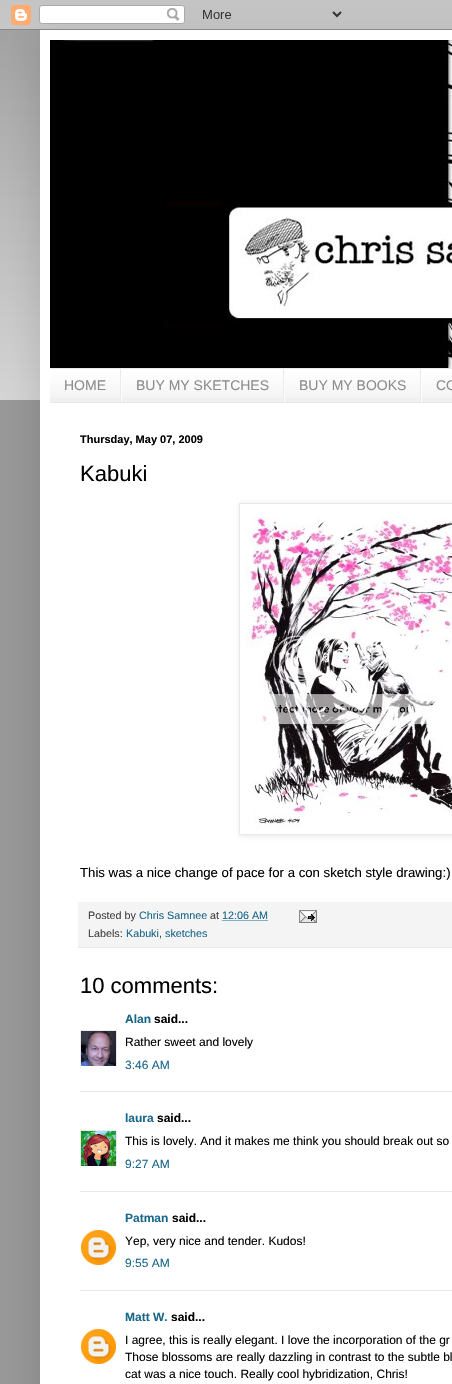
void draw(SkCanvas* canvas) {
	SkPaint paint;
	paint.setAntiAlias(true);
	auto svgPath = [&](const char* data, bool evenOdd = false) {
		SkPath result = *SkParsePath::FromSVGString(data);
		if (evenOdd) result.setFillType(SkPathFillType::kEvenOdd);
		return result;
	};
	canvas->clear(0xff999999);
	canvas->drawImageRect(SkImages::DeferredFromEncodedData(SkData::MakeFromFileName("img1.png")), SkRect::MakeXYWH(0, 0, 452, 400), SkSamplingOptions());
	paint.setColor(0x26000000);
	paint.setMaskFilter(SkMaskFilter::MakeBlur(kNormal_SkBlurStyle, 20));
	canvas->drawRect(SkRect::MakeXYWH(40, 30, 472, 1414), paint);
	paint.setMaskFilter(nullptr);
	canvas->drawImageRect(SkImages::DeferredFromEncodedData(SkData::MakeFromFileName("img2.png")), SkRect::MakeXYWH(0, 0, 452, 30), SkSamplingOptions());
	paint.setColor(0xffffffff);
	canvas->drawRect(SkRect::MakeXYWH(40, 30, 412, 1354), paint);
	canvas->drawImageRect(SkImages::DeferredFromEncodedData(SkData::MakeFromFileName("img3.png")), SkRect::MakeXYWH(50, 40, 402, 328), SkSamplingOptions());
	paint.setColor(0xfff0f0f0);
	canvas->drawRect(SkRect::MakeXYWH(50, 370, 402, 32), paint);
	canvas->drawImageRect(SkImages::DeferredFromEncodedData(SkData::MakeFromFileName("img4.png")), SkRect::MakeXYWH(50, 369, 402, 29), SkSamplingOptions());
	paint.setColor(0xffe9e9e9);
	canvas->drawRect(SkRect::MakeXYWH(50, 368, 402, 1), paint);
	canvas->drawRect(SkRect::MakeXYWH(50, 402, 402, 1), paint);
	canvas->drawRect(SkRect::MakeXYWH(120, 369, 1, 33), paint);
	SkFont f1(fontMgr->matchFamilyStyle("Liberation Sans", SkFontStyle::Normal()), 14);
	f1.setSubpixel(true);
	paint.setColor(0xff8c8c8c);
	canvas->drawString("HOME", 64, 390, f1, paint);
	paint.setColor(0xffe9e9e9);
	canvas->drawRect(SkRect::MakeXYWH(283, 369, 1, 33), paint);
	paint.setColor(0xffffffff);
	canvas->drawRect(SkRect::MakeXYWH(121, 369, 1, 33), paint);
	paint.setColor(0xff8c8c8c);
	canvas->drawString("BUY MY SKETCHES", 136, 390, f1, paint);
	paint.setColor(0xffe9e9e9);
	canvas->drawRect(SkRect::MakeXYWH(420, 369, 1, 33), paint);
	paint.setColor(0xffffffff);
	canvas->drawRect(SkRect::MakeXYWH(284, 369, 1, 33), paint);
	paint.setColor(0xff8c8c8c);
	canvas->drawString("BUY MY BOOKS", 299, 390, f1, paint);
	paint.setColor(0xffffffff);
	canvas->drawRect(SkRect::MakeXYWH(421, 369, 1, 33), paint);
	paint.setColor(0xff8c8c8c);
	canvas->drawString("CO", 436, 390, f1, paint);
	SkFont f2(fontMgr->matchFamilyStyle("Liberation Sans", SkFontStyle::Bold()), 11);
	f2.setSubpixel(true);
	paint.setColor(0xff000000);
	canvas->drawString("Thursday, May 07, 2009", 80, 443, f2, paint);
	SkFont f3(fontMgr->matchFamilyStyle("Liberation Sans", SkFontStyle::Normal()), 22);
	f3.setSubpixel(true);
	canvas->drawString("Kabuki", 80, 481, f3, paint);
	canvas->save();
	canvas->clipPath(svgPath("M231 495H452V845H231ZM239 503H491V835H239Z", true), true);
	paint.setColor(0x1a000000);
	paint.setMaskFilter(SkMaskFilter::MakeBlur(kNormal_SkBlurStyle, 2.5));
	canvas->drawRect(SkRect::MakeXYWH(240, 504, 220, 332), paint);
	paint.setMaskFilter(nullptr);
	canvas->restore();
	paint.setStroke(true);
	paint.setStrokeWidth(1);
	paint.setColor(0xffe9e9e9);
	canvas->drawRect(SkRect::MakeXYWH(239.5, 503.5, 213, 331), paint);
	canvas->drawImageRect(SkImages::DeferredFromEncodedData(SkData::MakeFromFileName("img5.png")), SkRect::MakeXYWH(245, 517, 207, 312), SkSamplingOptions());
	SkFont f4(fontMgr->matchFamilyStyle("Liberation Sans", SkFontStyle::Normal()), 13.2);
	f4.setSubpixel(true);
	paint.setStroke(false);
	paint.setColor(0xff000000);
	canvas->drawString("This was a nice change of pace for a con sketch style drawing:)", 80, 877, f4, paint);
	paint.setColor(0xfff4f4f4);
	canvas->drawRect(SkRect::MakeXYWH(78, 902, 374, 45), paint);
	paint.setColor(0xffe9e9e9);
	canvas->drawRect(SkRect::MakeXYWH(78, 947, 374, 1), paint);
	SkFont f5(fontMgr->matchFamilyStyle("Liberation Sans", SkFontStyle::Normal()), 10.75);
	f5.setSubpixel(true);
	paint.setColor(0xff404040);
	canvas->drawString("Posted by", 88, 919, f5, paint);
	paint.setColor(0xff19668a);
	canvas->drawString("Chris Samnee", 139, 919, f5, paint);
	paint.setColor(0xff404040);
	canvas->drawString("at", 210, 919, f5, paint);
	paint.setColor(0xff19668a);
	canvas->drawString("12:06 AM", 222, 919, f5, paint);
	paint.setStroke(true);
	paint.setPathEffect(SkDashPathEffect::Make({{1, 1}}, 0));
	canvas->drawPath(svgPath("M222.5 920.5H268.5"), paint);
	paint.setPathEffect(nullptr);
	canvas->drawImageRect(SkImages::DeferredFromEncodedData(SkData::MakeFromFileName("img6.png")), SkRect::MakeXYWH(299, 910, 18, 13), SkSamplingOptions());
	paint.setStroke(false);
	paint.setColor(0xff404040);
	canvas->drawString("Labels:", 88, 937, f5, paint);
	paint.setColor(0xff19668a);
	canvas->drawString("Kabuki", 126, 937, f5, paint);
	paint.setColor(0xff404040);
	canvas->drawString(",", 159, 937, f5, paint);
	paint.setColor(0xff19668a);
	canvas->drawString("sketches", 165, 937, f5, paint);
	paint.setColor(0xff000000);
	canvas->drawString("10 comments:", 80, 993, f3, paint);
	SkFont f6(fontMgr->matchFamilyStyle("Liberation Sans", SkFontStyle::Bold()), 12);
	f6.setSubpixel(true);
	paint.setColor(0xff19668a);
	canvas->drawString("Alan", 125, 1023, f6, paint);
	paint.setColor(0xff000000);
	canvas->drawString("said...", 154, 1023, f6, paint);
	canvas->save();
	canvas->clipRect(SkRect::MakeXYWH(80, 1030, 37, 36));
	paint.setStroke(true);
	paint.setColor(0xffe9e9e9);
	canvas->drawRect(SkRect::MakeXYWH(80.5, 1030.5, 36, 36), paint);
	canvas->restore();
	canvas->drawImageRect(SkImages::DeferredFromEncodedData(SkData::MakeFromFileName("img7.png")), SkRect::MakeXYWH(81, 1031, 35, 35), SkSamplingOptions());
	SkFont f7(fontMgr->matchFamilyStyle("Liberation Sans", SkFontStyle::Normal()), 12);
	f7.setSubpixel(true);
	paint.setStroke(false);
	paint.setColor(0xff000000);
	canvas->drawString("Rather sweet and lovely", 125, 1046, f7, paint);
	paint.setColor(0xff19668a);
	canvas->drawString("3:46 AM", 125, 1069, f7, paint);
	paint.setColor(0xffe9e9e9);
	canvas->drawRect(SkRect::MakeXYWH(80, 1091, 372, 1), paint);
	paint.setColor(0xff19668a);
	canvas->drawString("laura", 125, 1122, f6, paint);
	paint.setColor(0xff000000);
	canvas->drawString("said...", 157, 1122, f6, paint);
	canvas->save();
	canvas->clipRect(SkRect::MakeXYWH(80, 1130, 37, 36));
	paint.setStroke(true);
	paint.setColor(0xffe9e9e9);
	canvas->drawRect(SkRect::MakeXYWH(80.5, 1130.5, 36, 36), paint);
	canvas->restore();
	canvas->drawImageRect(SkImages::DeferredFromEncodedData(SkData::MakeFromFileName("img8.png")), SkRect::MakeXYWH(81, 1131, 35, 35), SkSamplingOptions());
	paint.setStroke(false);
	paint.setColor(0xff000000);
	canvas->drawString("This is lovely. And it makes me think you should break out so", 125, 1145, f7, paint);
	paint.setColor(0xff19668a);
	canvas->drawString("9:27 AM", 125, 1168, f7, paint);
	paint.setColor(0xffe9e9e9);
	canvas->drawRect(SkRect::MakeXYWH(80, 1191, 372, 1), paint);
	paint.setColor(0xff19668a);
	canvas->drawString("Patman", 125, 1222, f6, paint);
	paint.setColor(0xff000000);
	canvas->drawString("said...", 172, 1222, f6, paint);
	canvas->drawImageRect(SkImages::DeferredFromEncodedData(SkData::MakeFromFileName("img9.png")), SkRect::MakeXYWH(81, 1230, 35, 35), SkSamplingOptions());
	canvas->drawString("Yep, very nice and tender. Kudos!", 125, 1245, f7, paint);
	paint.setColor(0xff19668a);
	canvas->drawString("9:55 AM", 125, 1267, f7, paint);
	paint.setColor(0xffe9e9e9);
	canvas->drawRect(SkRect::MakeXYWH(80, 1290, 372, 1), paint);
	paint.setColor(0xff19668a);
	canvas->drawString("Matt W.", 125, 1321, f6, paint);
	paint.setColor(0xff000000);
	canvas->drawString("said...", 171, 1321, f6, paint);
	canvas->drawImageRect(SkImages::DeferredFromEncodedData(SkData::MakeFromFileName("img9.png")), SkRect::MakeXYWH(81, 1329, 35, 35), SkSamplingOptions());
	canvas->drawString("I agree, this is really elegant. I love the incorporation of the gr", 125, 1344, f7, paint);
	canvas->drawString("Those blossoms are really dazzling in contrast to the subtle bl", 125, 1361, f7, paint);
	canvas->drawString("cat was a nice touch. Really cool hybridization, Chris!", 125, 1378, f7, paint);
}
